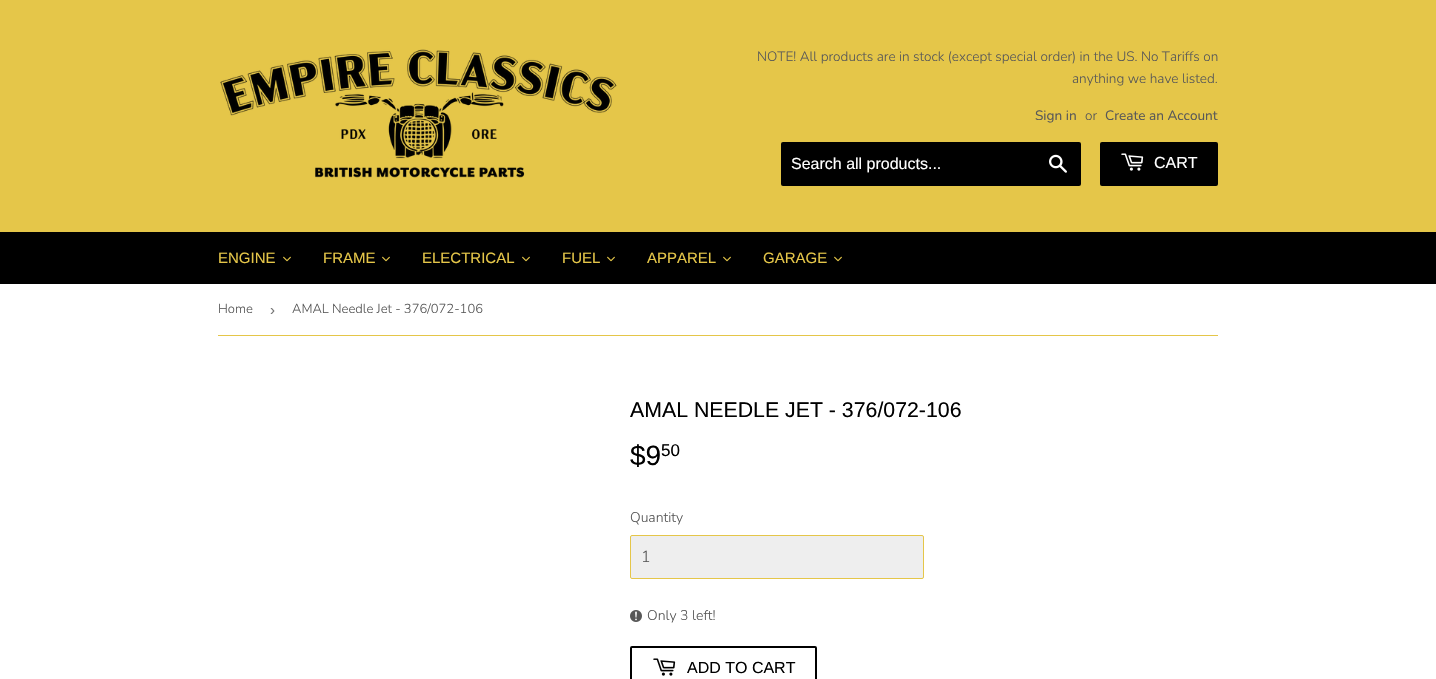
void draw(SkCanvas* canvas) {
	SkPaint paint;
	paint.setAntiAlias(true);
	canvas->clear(0xffffffff);
	paint.setColor(0xffe5c649);
	canvas->drawRect(SkRect::MakeXYWH(0, 0, 1436, 232), paint);
	canvas->drawImageRect(SkImages::DeferredFromEncodedData(SkData::MakeFromFileName("img1.png")), SkRect::MakeXYWH(220, 49, 397, 129), SkSamplingOptions());
	SkFont f1(fontMgr->matchFamilyStyle("Nunito", SkFontStyle(300, SkFontStyle::kNormal_Width, SkFontStyle::kUpright_Slant)), 13.6);
	f1.setSubpixel(true);
	paint.setColor(0xff585858);
	canvas->drawString("NOTE! All products are in stock (except special order) in the US. No Tariffs on", 757, 61, f1, paint);
	canvas->drawString("anything we have listed.", 1072, 83, f1, paint);
	SkFont f2(fontMgr->matchFamilyStyle("Nunito", SkFontStyle::Normal()), 13.6);
	f2.setSubpixel(true);
	canvas->drawString("Sign in", 1035, 120, f2, paint);
	canvas->drawString("or", 1085, 120, f1, paint);
	canvas->drawString("Create an Account", 1105, 120, f2, paint);
	paint.setColor(0xff000000);
	canvas->drawRoundRect(SkRect::MakeXYWH(781, 142, 300, 44), 2, 2, paint);
	SkFont f3(fontMgr->matchFamilyStyle("Liberation Sans", SkFontStyle::Normal()), 16);
	f3.setSubpixel(true);
	paint.setColor(0xffffffff);
	canvas->drawString("Search all products...", 791, 169, f3, paint);
	canvas->drawImageRect(SkImages::DeferredFromEncodedData(SkData::MakeFromFileName("img2.png")), SkRect::MakeXYWH(1049, 154, 18, 19), SkSamplingOptions());
	paint.setColor(0xff000000);
	canvas->drawRoundRect(SkRect::MakeXYWH(1100, 142, 118, 44), 2, 2, paint);
	canvas->drawImageRect(SkImages::DeferredFromEncodedData(SkData::MakeFromFileName("img3.png")), SkRect::MakeXYWH(1121, 153, 23, 18), SkSamplingOptions());
	paint.setColor(0xffffffff);
	canvas->drawString("CART", 1154, 168, f3, paint);
	paint.setColor(0xff000000);
	canvas->drawRect(SkRect::MakeXYWH(0, 232, 1436, 52), paint);
	SkFont f4(fontMgr->matchFamilyStyle("Liberation Sans", SkFontStyle::Normal()), 15);
	f4.setSubpixel(true);
	paint.setColor(0xffe5c649);
	canvas->drawString("ENGINE", 218, 263, f4, paint);
	canvas->drawImageRect(SkImages::DeferredFromEncodedData(SkData::MakeFromFileName("img4.png")), SkRect::MakeXYWH(283, 256, 8, 6), SkSamplingOptions());
	canvas->drawString("FRAME", 323, 263, f4, paint);
	canvas->drawImageRect(SkImages::DeferredFromEncodedData(SkData::MakeFromFileName("img4.png")), SkRect::MakeXYWH(382, 256, 8, 6), SkSamplingOptions());
	canvas->drawString("ELECTRICAL", 422, 263, f4, paint);
	canvas->drawImageRect(SkImages::DeferredFromEncodedData(SkData::MakeFromFileName("img4.png")), SkRect::MakeXYWH(522, 256, 8, 6), SkSamplingOptions());
	canvas->drawString("FUEL", 562, 263, f4, paint);
	canvas->drawImageRect(SkImages::DeferredFromEncodedData(SkData::MakeFromFileName("img4.png")), SkRect::MakeXYWH(607, 256, 8, 6), SkSamplingOptions());
	canvas->drawString("APPAREL", 647, 263, f4, paint);
	canvas->drawImageRect(SkImages::DeferredFromEncodedData(SkData::MakeFromFileName("img4.png")), SkRect::MakeXYWH(723, 256, 8, 6), SkSamplingOptions());
	canvas->drawString("GARAGE", 763, 263, f4, paint);
	canvas->drawImageRect(SkImages::DeferredFromEncodedData(SkData::MakeFromFileName("img4.png")), SkRect::MakeXYWH(834, 256, 8, 6), SkSamplingOptions());
	canvas->drawRect(SkRect::MakeXYWH(218, 335, 1000, 1), paint);
	SkFont f5(fontMgr->matchFamilyStyle("Nunito", SkFontStyle(300, SkFontStyle::kNormal_Width, SkFontStyle::kUpright_Slant)), 13);
	f5.setSubpixel(true);
	paint.setColor(0xff585858);
	canvas->drawString("Home", 218, 313, f5, paint);
	paint.setColor(0xff767676);
	canvas->drawString("›", 270, 315, f4, paint);
	paint.setColor(0xff585858);
	canvas->drawString("AMAL Needle Jet - 376/072-106", 292, 313, f5, paint);
	SkFont f6(fontMgr->matchFamilyStyle("Liberation Sans", SkFontStyle::Normal()), 21.3);
	f6.setSubpixel(true);
	paint.setColor(0xff000000);
	canvas->drawString("AMAL NEEDLE JET - 376/072-106", 630, 417, f6, paint);
	SkFont f7(fontMgr->matchFamilyStyle("Liberation Sans", SkFontStyle::Normal()), 28);
	f7.setSubpixel(true);
	canvas->drawString("$9", 630, 465, f7, paint);
	SkFont f8(fontMgr->matchFamilyStyle("Liberation Sans", SkFontStyle::Normal()), 17);
	f8.setSubpixel(true);
	canvas->drawString("50", 661, 456, f8, paint);
	SkFont f9(fontMgr->matchFamilyStyle("Nunito", SkFontStyle(300, SkFontStyle::kNormal_Width, SkFontStyle::kUpright_Slant)), 14);
	f9.setSubpixel(true);
	paint.setColor(0xff585858);
	canvas->drawString("Quantity", 630, 522, f9, paint);
	paint.setColor(0xffeeeeee);
	canvas->drawRoundRect(SkRect::MakeXYWH(630.5, 535.5, 293, 43), 1.5, 1.5, paint);
	paint.setStroke(true);
	paint.setStrokeWidth(1);
	paint.setColor(0xffe5c649);
	canvas->drawRoundRect(SkRect::MakeXYWH(630.5, 535.5, 293, 43), 1.5, 1.5, paint);
	SkFont f10(fontMgr->matchFamilyStyle("Nunito", SkFontStyle(300, SkFontStyle::kNormal_Width, SkFontStyle::kUpright_Slant)), 16);
	f10.setSubpixel(true);
	paint.setStroke(false);
	paint.setColor(0xff585858);
	canvas->drawString("1", 641, 562, f10, paint);
	canvas->drawImageRect(SkImages::DeferredFromEncodedData(SkData::MakeFromFileName("img5.png")), SkRect::MakeXYWH(630, 610, 12, 12), SkSamplingOptions());
	canvas->drawString("Only 3 left!", 647, 620, f9, paint);
	paint.setStroke(true);
	paint.setStrokeWidth(2);
	paint.setColor(0xff000000);
	canvas->drawRoundRect(SkRect::MakeXYWH(631, 647, 185, 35), 1, 1, paint);
	canvas->drawImageRect(SkImages::DeferredFromEncodedData(SkData::MakeFromFileName("img6.png")), SkRect::MakeXYWH(653, 658, 23, 18), SkSamplingOptions());
	paint.setStroke(false);
	canvas->drawString("ADD TO CART", 687, 673, f3, paint);
}
